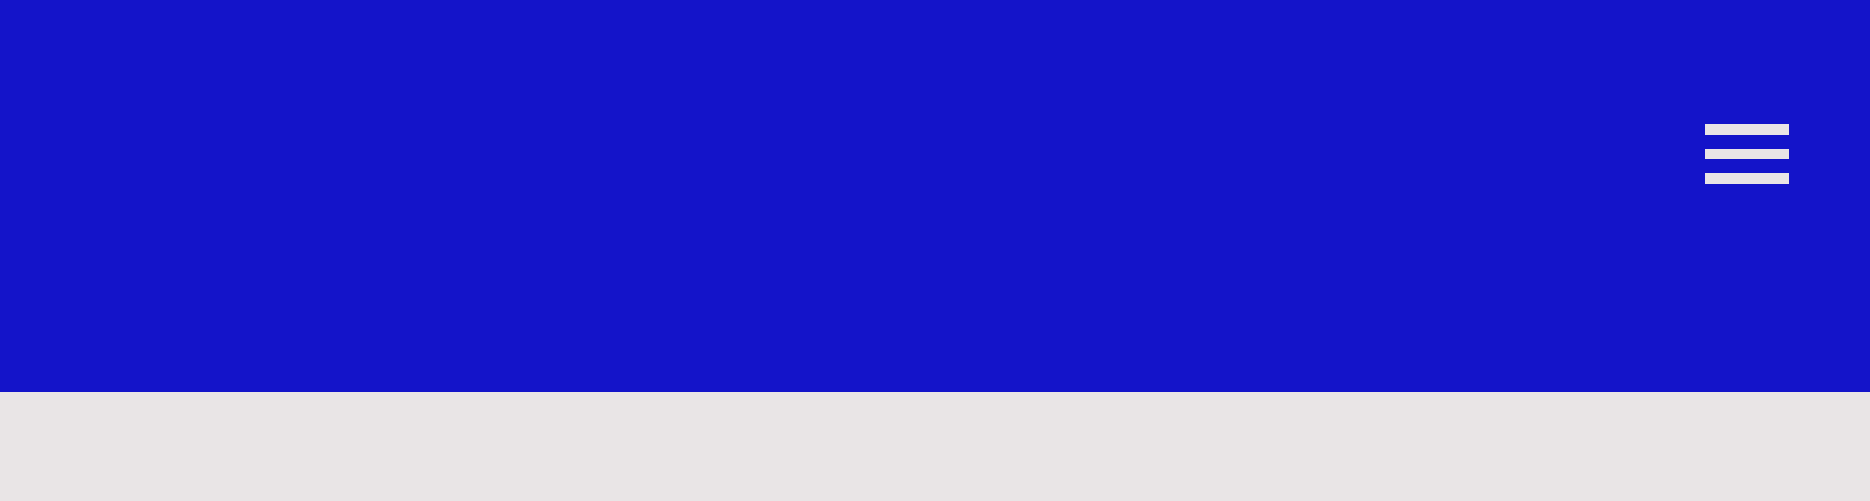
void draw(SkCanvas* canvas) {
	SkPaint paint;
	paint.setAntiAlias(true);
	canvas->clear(0xffe9e5e6);
	paint.setColor(0xff1414c9);
	canvas->drawRect(SkRect::MakeXYWH(0, 0, 1870, 392), paint);
	paint.setColor(0xffe9e5e6);
	canvas->drawRect(SkRect::MakeXYWH(1705, 124, 84, 11), paint);
	canvas->drawRect(SkRect::MakeXYWH(1705, 149, 84, 10), paint);
	canvas->drawRect(SkRect::MakeXYWH(1705, 173, 84, 11), paint);
}
